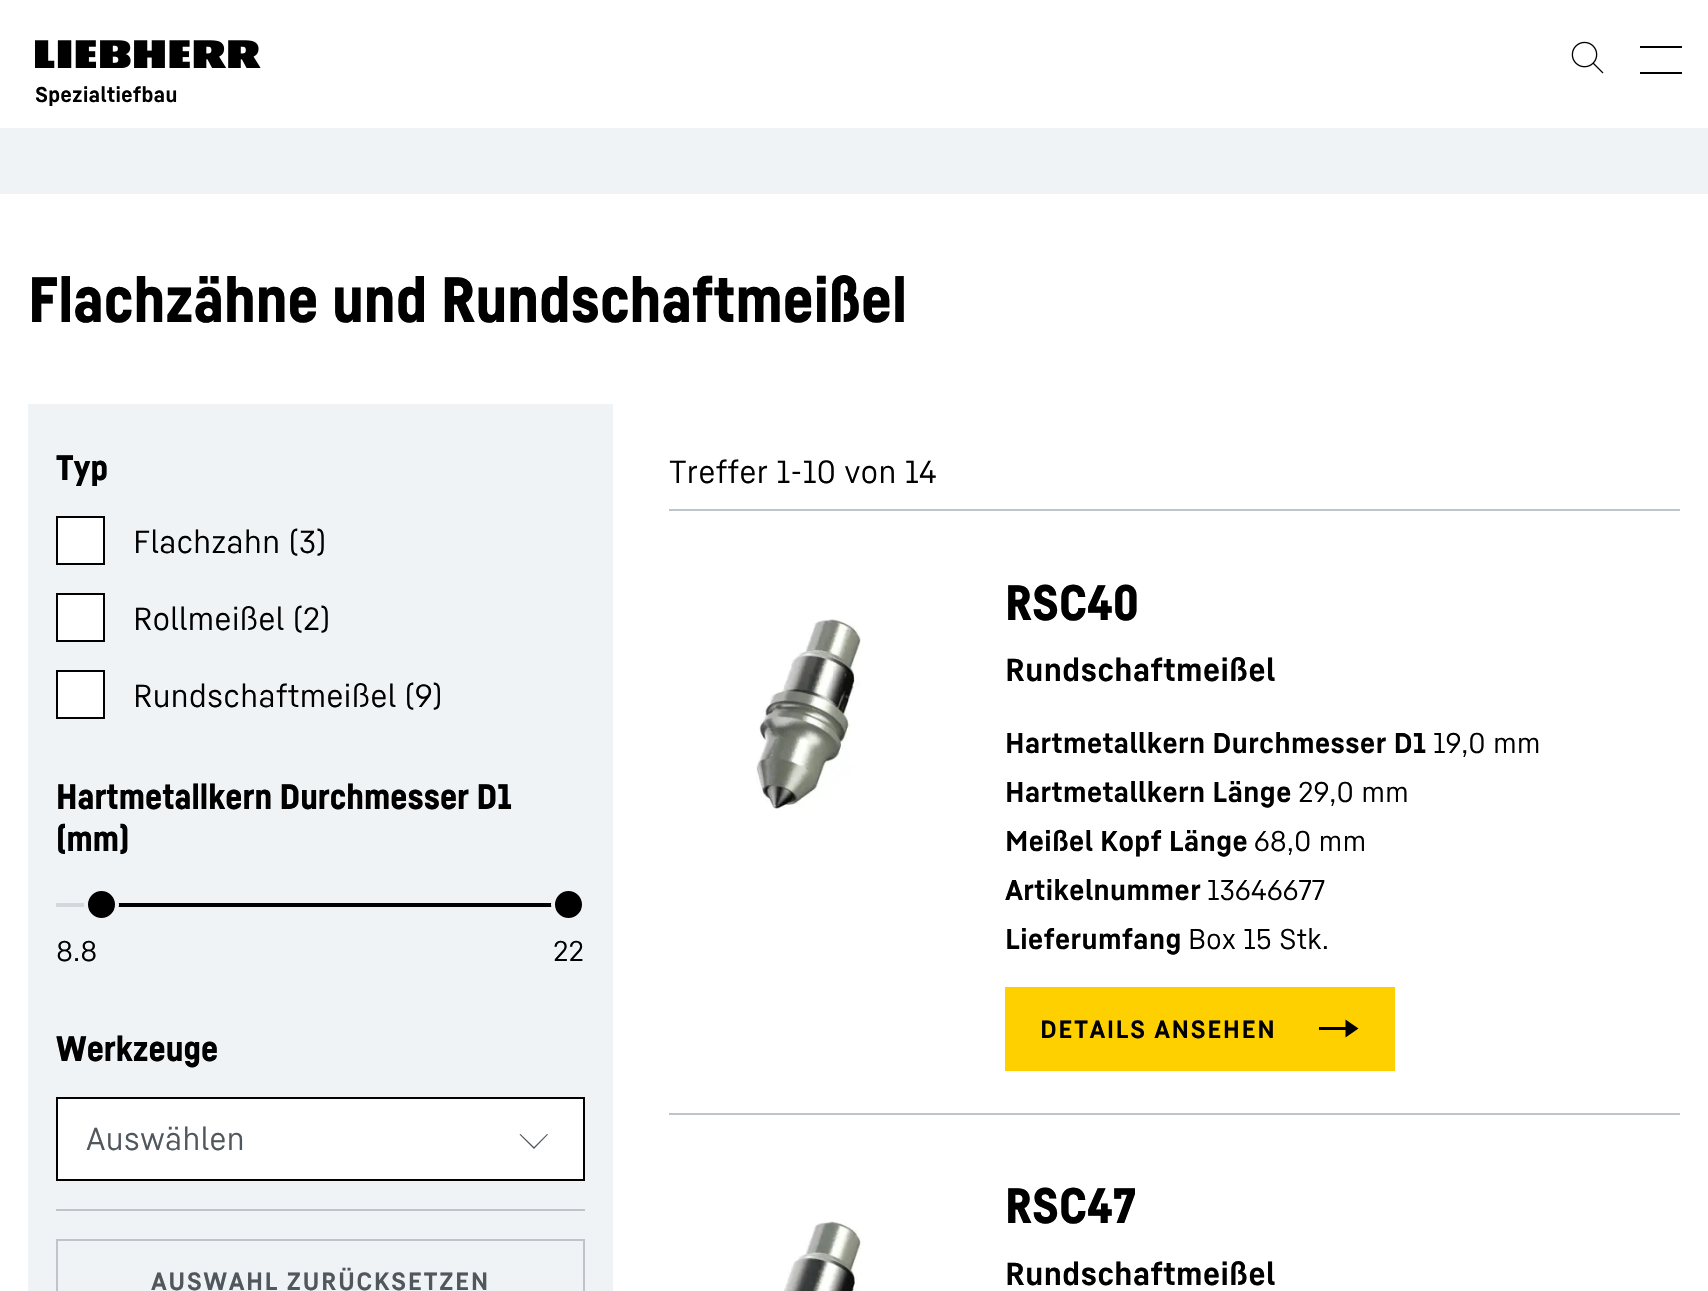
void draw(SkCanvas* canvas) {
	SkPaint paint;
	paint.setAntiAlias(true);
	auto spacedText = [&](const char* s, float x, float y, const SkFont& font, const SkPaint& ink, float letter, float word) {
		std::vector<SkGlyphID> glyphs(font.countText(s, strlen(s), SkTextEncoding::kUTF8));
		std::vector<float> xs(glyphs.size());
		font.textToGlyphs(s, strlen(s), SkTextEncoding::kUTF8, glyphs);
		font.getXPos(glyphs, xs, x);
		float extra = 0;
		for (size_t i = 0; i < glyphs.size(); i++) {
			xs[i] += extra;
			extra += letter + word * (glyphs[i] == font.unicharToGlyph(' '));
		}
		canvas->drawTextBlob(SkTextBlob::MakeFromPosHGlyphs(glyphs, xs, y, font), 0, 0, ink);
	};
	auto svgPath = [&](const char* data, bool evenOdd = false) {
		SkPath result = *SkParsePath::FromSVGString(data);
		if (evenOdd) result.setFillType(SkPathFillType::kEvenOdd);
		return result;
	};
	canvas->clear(0xffffffff);
	canvas->drawImageRect(SkImages::DeferredFromEncodedData(SkData::MakeFromFileName("img1.png")), SkRect::MakeXYWH(35, 40, 226, 28), SkSamplingOptions());
	canvas->drawImageRect(SkImages::DeferredFromEncodedData(SkData::MakeFromFileName("img2.png")), SkRect::MakeXYWH(1571, 41, 33, 33), SkSamplingOptions());
	paint.setColor(0xff000000);
	canvas->drawRect(SkRect::MakeXYWH(1640, 46, 42, 2), paint);
	canvas->drawRect(SkRect::MakeXYWH(1640, 72, 42, 2), paint);
	SkFont f1(fontMgr->matchFamilyStyle("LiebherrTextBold", SkFontStyle::Bold()), 21);
	f1.setSubpixel(true);
	canvas->drawString("Spezialtiefbau", 35, 102, f1, paint);
	paint.setColor(0xfff0f3f6);
	canvas->drawRect(SkRect::MakeXYWH(0, 128, 1708, 66), paint);
	SkFont f2(fontMgr->matchFamilyStyle("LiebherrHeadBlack", SkFontStyle(900, SkFontStyle::kNormal_Width, SkFontStyle::kUpright_Slant)), 63);
	f2.setSubpixel(true);
	paint.setColor(0xff000000);
	canvas->drawString("Flachzähne und Rundschaftmeißel", 28, 322, f2, paint);
	paint.setColor(0xfff0f3f6);
	canvas->drawRect(SkRect::MakeXYWH(28, 404, 585, 887), paint);
	SkFont f3(fontMgr->matchFamilyStyle("LiebherrHeadBlack", SkFontStyle(900, SkFontStyle::kNormal_Width, SkFontStyle::kUpright_Slant)), 35);
	f3.setSubpixel(true);
	paint.setColor(0xff000000);
	canvas->drawString("Typ", 56, 480, f3, paint);
	paint.setColor(0xffffffff);
	canvas->drawRect(SkRect::MakeXYWH(57, 517, 47, 47), paint);
	paint.setStroke(true);
	paint.setStrokeWidth(2);
	paint.setColor(0xff000000);
	canvas->drawRect(SkRect::MakeXYWH(57, 517, 47, 47), paint);
	SkFont f4(fontMgr->matchFamilyStyle("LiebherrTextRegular", SkFontStyle::Normal()), 31.5);
	f4.setSubpixel(true);
	paint.setStroke(false);
	canvas->drawString("Flachzahn (3)", 133, 553, f4, paint);
	paint.setColor(0xffffffff);
	canvas->drawRect(SkRect::MakeXYWH(57, 594, 47, 47), paint);
	paint.setStroke(true);
	paint.setColor(0xff000000);
	canvas->drawRect(SkRect::MakeXYWH(57, 594, 47, 47), paint);
	paint.setStroke(false);
	canvas->drawString("Rollmeißel (2)", 133, 630, f4, paint);
	paint.setColor(0xffffffff);
	canvas->drawRect(SkRect::MakeXYWH(57, 671, 47, 47), paint);
	paint.setStroke(true);
	paint.setColor(0xff000000);
	canvas->drawRect(SkRect::MakeXYWH(57, 671, 47, 47), paint);
	paint.setStroke(false);
	canvas->drawString("Rundschaftmeißel (9)", 133, 707, f4, paint);
	canvas->drawString("Hartmetallkern Durchmesser D1", 56, 809, f3, paint);
	canvas->drawString("(mm)", 56, 851, f3, paint);
	paint.setColor(0xffd3d8dd);
	canvas->drawRect(SkRect::MakeXYWH(56, 903, 29, 4), paint);
	paint.setColor(0xff000000);
	canvas->drawRect(SkRect::MakeXYWH(118, 903, 434, 4), paint);
	canvas->drawCircle(101.5, 904.5, 15.5, paint);
	paint.setStroke(true);
	paint.setStrokeWidth(4);
	paint.setColor(0xfff0f3f6);
	canvas->drawCircle(101.5, 904.5, 15.5, paint);
	paint.setStroke(false);
	paint.setColor(0xff000000);
	canvas->drawCircle(568.5, 904.5, 15.5, paint);
	paint.setStroke(true);
	paint.setColor(0xfff0f3f6);
	canvas->drawCircle(568.5, 904.5, 15.5, paint);
	SkFont f5(fontMgr->matchFamilyStyle("LiebherrTextRegular", SkFontStyle::Normal()), 28);
	f5.setSubpixel(true);
	paint.setStroke(false);
	paint.setColor(0xff000000);
	canvas->drawString("8.8", 56, 961, f5, paint);
	canvas->drawString("22", 553, 961, f5, paint);
	canvas->drawString("Werkzeuge", 56, 1061, f3, paint);
	paint.setColor(0xffffffff);
	canvas->drawRect(SkRect::MakeXYWH(57, 1098, 527, 82), paint);
	paint.setStroke(true);
	paint.setStrokeWidth(2);
	paint.setColor(0xff000000);
	canvas->drawRect(SkRect::MakeXYWH(57, 1098, 527, 82), paint);
	paint.setStroke(false);
	paint.setColor(0xff51585d);
	canvas->drawString("Auswählen", 86, 1150, f4, paint);
	canvas->drawPath(svgPath("M534 1149L519.5 1134.5L520.5 1134L534 1147L547 1134L548 1134.5Z"), paint);
	paint.setColor(0xffbdc4ca);
	canvas->drawRect(SkRect::MakeXYWH(56, 1209, 529, 2), paint);
	paint.setStroke(true);
	canvas->drawRect(SkRect::MakeXYWH(57, 1240, 527, 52), paint);
	SkFont f6(fontMgr->matchFamilyStyle("LiebherrTextBold", SkFontStyle::Bold()), 24.5);
	f6.setSubpixel(true);
	paint.setStroke(false);
	paint.setColor(0xff51585d);
	spacedText("AUSWAHL ZURÜCKSETZEN", 151, 1290, f6, paint, 1.4, 0);
	paint.setColor(0xffbdc4ca);
	canvas->drawRect(SkRect::MakeXYWH(669, 509, 1011, 2), paint);
	paint.setColor(0xff000000);
	canvas->drawString("Treffer 1-10 von 14", 669, 483, f4, paint);
	paint.setColor(0xffbdc4ca);
	canvas->drawRect(SkRect::MakeXYWH(669, 1113, 1011, 2), paint);
	canvas->drawImageRect(SkImages::DeferredFromEncodedData(SkData::MakeFromFileName("img3.png")), SkRect::MakeXYWH(756, 619, 105, 190), SkSamplingOptions());
	SkFont f7(fontMgr->matchFamilyStyle("LiebherrHeadBlack", SkFontStyle(900, SkFontStyle::kNormal_Width, SkFontStyle::kUpright_Slant)), 49);
	f7.setSubpixel(true);
	paint.setColor(0xff000000);
	canvas->drawString("RSC40", 1005, 620, f7, paint);
	SkFont f8(fontMgr->matchFamilyStyle("LiebherrTextBold", SkFontStyle::Bold()), 31.5);
	f8.setSubpixel(true);
	canvas->drawString("Rundschaftmeißel", 1005, 681, f8, paint);
	SkFont f9(fontMgr->matchFamilyStyle("LiebherrTextBold", SkFontStyle::Bold()), 28);
	f9.setSubpixel(true);
	canvas->drawString("Hartmetallkern Durchmesser D1", 1005, 753, f9, paint);
	canvas->drawString("19,0 mm", 1433, 753, f5, paint);
	canvas->drawString("Hartmetallkern Länge", 1005, 802, f9, paint);
	canvas->drawString("29,0 mm", 1298, 802, f5, paint);
	canvas->drawString("Meißel Kopf Länge", 1005, 851, f9, paint);
	canvas->drawString("68,0 mm", 1254, 851, f5, paint);
	canvas->drawString("Artikelnummer", 1005, 900, f9, paint);
	canvas->drawString("13646677", 1207, 900, f5, paint);
	canvas->drawString("Lieferumfang", 1005, 949, f9, paint);
	canvas->drawString("Box 15 Stk.", 1188, 949, f5, paint);
	paint.setColor(0xffffd000);
	canvas->drawRect(SkRect::MakeXYWH(1005, 987, 390, 84), paint);
	paint.setColor(0xff000000);
	spacedText("DETAILS ANSEHEN", 1040, 1038, f6, paint, 1.4, 0);
	canvas->drawPath(svgPath("M1358.5 1028.5L1345.5 1019.5V1027H1319V1030H1345.5V1037.5Z"), paint);
	canvas->drawImageRect(SkImages::DeferredFromEncodedData(SkData::MakeFromFileName("img4.png")), SkRect::MakeXYWH(784, 1220, 80, 71), SkSamplingOptions());
	canvas->drawString("RSC47", 1005, 1223, f7, paint);
	canvas->drawString("Rundschaftmeißel", 1005, 1285, f8, paint);
}
